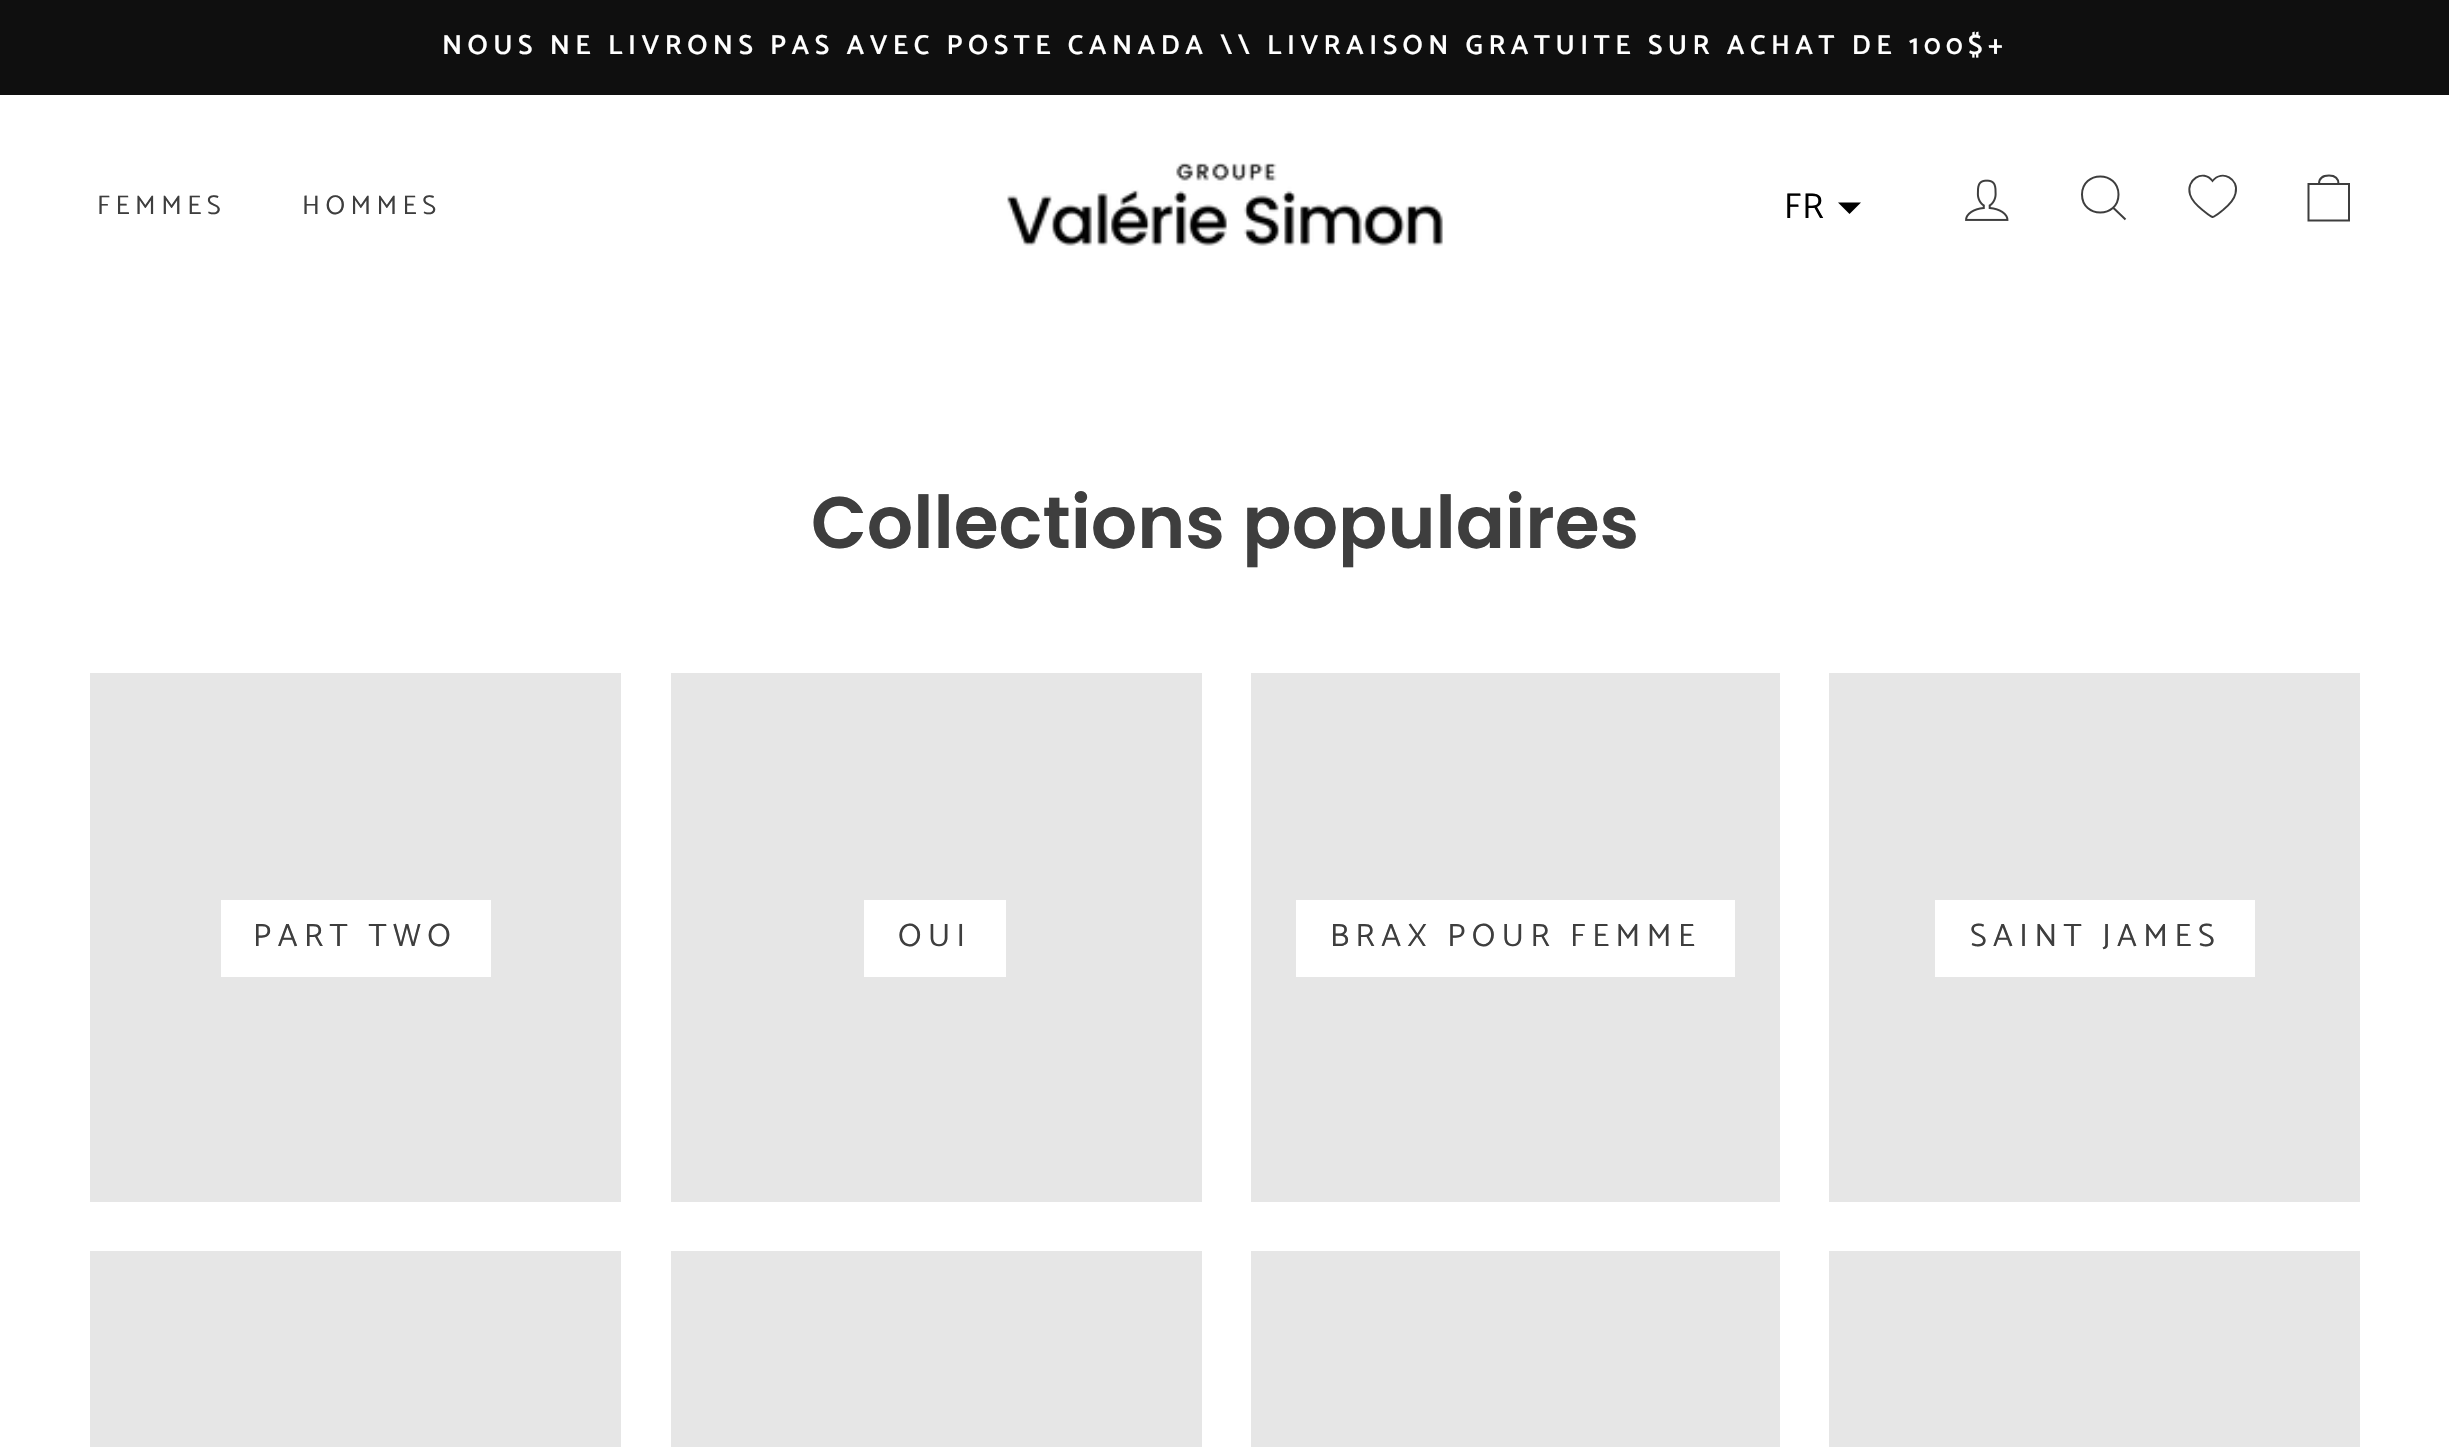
void draw(SkCanvas* canvas) {
	SkPaint paint;
	paint.setAntiAlias(true);
	auto spacedText = [&](const char* s, float x, float y, const SkFont& font, const SkPaint& ink, float letter, float word) {
		std::vector<SkGlyphID> glyphs(font.countText(s, strlen(s), SkTextEncoding::kUTF8));
		std::vector<float> xs(glyphs.size());
		font.textToGlyphs(s, strlen(s), SkTextEncoding::kUTF8, glyphs);
		font.getXPos(glyphs, xs, x);
		float extra = 0;
		for (size_t i = 0; i < glyphs.size(); i++) {
			xs[i] += extra;
			extra += letter + word * (glyphs[i] == font.unicharToGlyph(' '));
		}
		canvas->drawTextBlob(SkTextBlob::MakeFromPosHGlyphs(glyphs, xs, y, font), 0, 0, ink);
	};
	auto svgPath = [&](const char* data, bool evenOdd = false) {
		SkPath result = *SkParsePath::FromSVGString(data);
		if (evenOdd) result.setFillType(SkPathFillType::kEvenOdd);
		return result;
	};
	canvas->clear(0xffffffff);
	paint.setColor(0xff0f0f0f);
	canvas->drawRect(SkRect::MakeXYWH(0, 0, 2449, 95), paint);
	SkFont f1(fontMgr->matchFamilyStyle("Catamaran", SkFontStyle(600, SkFontStyle::kNormal_Width, SkFontStyle::kUpright_Slant)), 27.55);
	f1.setSubpixel(true);
	paint.setColor(0xffffffff);
	spacedText("NOUS NE LIVRONS PAS AVEC POSTE CANADA \\\\ LIVRAISON GRATUITE SUR ACHAT DE 100$+", 442, 54, f1, paint, 5.5, 0);
	SkFont f2(fontMgr->matchFamilyStyle("Catamaran", SkFontStyle::Normal()), 27);
	f2.setSubpixel(true);
	paint.setColor(0xff3e3e3e);
	spacedText("FEMMES", 97, 214, f2, paint, 5.5, 0);
	spacedText("HOMMES", 302, 214, f2, paint, 5.5, 0);
	canvas->drawImageRect(SkImages::DeferredFromEncodedData(SkData::MakeFromFileName("img1.png")), SkRect::MakeXYWH(1007, 162, 436, 84), SkSamplingOptions());
	SkFont f3(fontMgr->matchFamilyStyle("Catamaran", SkFontStyle::Normal()), 36);
	f3.setSubpixel(true);
	paint.setColor(0xff000000);
	spacedText("FR", 1784, 218, f3, paint, 1, 0);
	canvas->drawPath(svgPath("M1838 202.5H1861L1849.5 214Z"), paint);
	canvas->drawImageRect(SkImages::DeferredFromEncodedData(SkData::MakeFromFileName("img2.png")), SkRect::MakeXYWH(1965, 179, 44, 42), SkSamplingOptions());
	paint.setStroke(true);
	paint.setStrokeWidth(2);
	paint.setColor(0xff3e3e3e);
	canvas->drawPath(svgPath("M2118.5 194.5C2118.5 218.5 2082 218.5 2082 194.5C2082 170.5 2118.5 170.5 2118.5 194.5ZM2125.5 219.5L2113.5 208"), paint);
	paint.setStrokeWidth(1.9);
	canvas->drawPath(svgPath("M2212.5 217C2210 216.5 2204.5 211.5 2202.5 210C2197.5 206 2192 201 2190 194.5C2185.5 180 2203 168.5 2212.5 181C2222 169 2239.5 179 2235.5 193.5C2234 200.5 2228.5 205.5 2223 210C2221.5 211 2215.5 216.5 2212.5 217Z"), paint);
	paint.setStrokeWidth(2);
	canvas->drawPath(svgPath("M2308.5 184H2349V220.5H2308.5ZM2319 184C2319 177 2323.5 175.5 2329 175.5C2334 175.5 2338.5 177 2338.5 184"), paint);
	SkFont f4(fontMgr->matchFamilyStyle("Poppins", SkFontStyle(600, SkFontStyle::kNormal_Width, SkFontStyle::kUpright_Slant)), 72.75);
	f4.setSubpixel(true);
	paint.setStroke(false);
	canvas->drawString("Collections populaires", 811, 548, f4, paint);
	paint.setColor(0xffe6e6e6);
	canvas->drawRect(SkRect::MakeXYWH(90, 673, 531, 529), paint);
	paint.setColor(0xffffffff);
	canvas->drawRect(SkRect::MakeXYWH(221, 900, 270, 77), paint);
	SkFont f5(fontMgr->matchFamilyStyle("Catamaran", SkFontStyle::Normal()), 32.4);
	f5.setSubpixel(true);
	paint.setColor(0xff3e3e3e);
	spacedText("PART TWO", 253, 946, f5, paint, 6.5, 0);
	paint.setColor(0xffe6e6e6);
	canvas->drawRect(SkRect::MakeXYWH(671, 673, 531, 529), paint);
	paint.setColor(0xffffffff);
	canvas->drawRect(SkRect::MakeXYWH(864, 900, 142, 77), paint);
	paint.setColor(0xff3e3e3e);
	spacedText("OUI", 898, 946, f5, paint, 6.5, 0);
	paint.setColor(0xffe6e6e6);
	canvas->drawRect(SkRect::MakeXYWH(1251, 673, 529, 529), paint);
	paint.setColor(0xffffffff);
	canvas->drawRect(SkRect::MakeXYWH(1296, 900, 439, 77), paint);
	paint.setColor(0xff3e3e3e);
	spacedText("BRAX POUR FEMME", 1330, 946, f5, paint, 6.5, 0);
	paint.setColor(0xffe6e6e6);
	canvas->drawRect(SkRect::MakeXYWH(1829, 673, 531, 529), paint);
	paint.setColor(0xffffffff);
	canvas->drawRect(SkRect::MakeXYWH(1935, 900, 320, 77), paint);
	paint.setColor(0xff3e3e3e);
	spacedText("SAINT JAMES", 1970, 946, f5, paint, 6.5, 0);
	paint.setColor(0xffe6e6e6);
	canvas->drawRect(SkRect::MakeXYWH(90, 1251, 531, 196), paint);
	canvas->drawRect(SkRect::MakeXYWH(671, 1251, 531, 196), paint);
	canvas->drawRect(SkRect::MakeXYWH(1251, 1251, 529, 196), paint);
	canvas->drawRect(SkRect::MakeXYWH(1829, 1251, 531, 196), paint);
}
